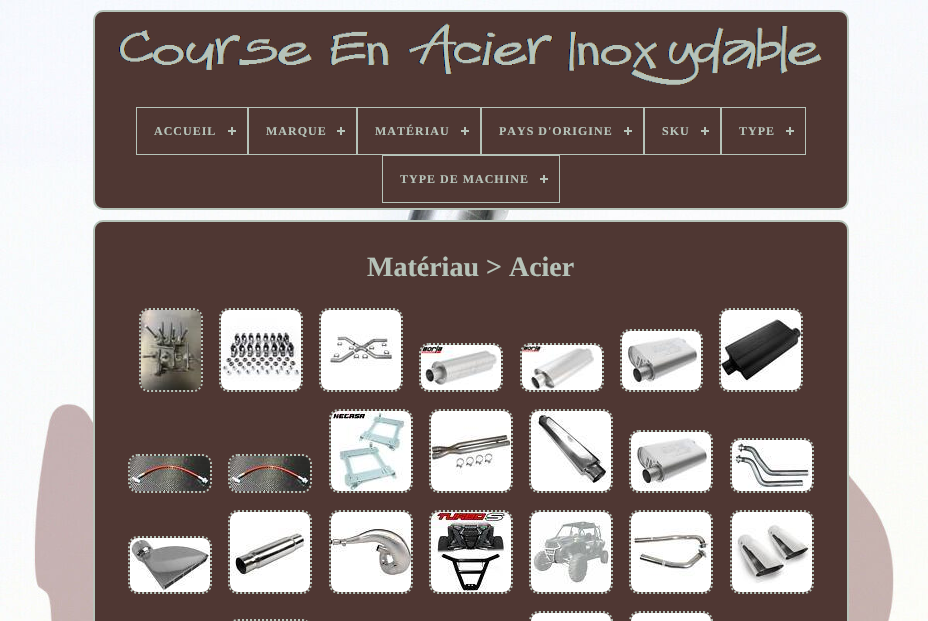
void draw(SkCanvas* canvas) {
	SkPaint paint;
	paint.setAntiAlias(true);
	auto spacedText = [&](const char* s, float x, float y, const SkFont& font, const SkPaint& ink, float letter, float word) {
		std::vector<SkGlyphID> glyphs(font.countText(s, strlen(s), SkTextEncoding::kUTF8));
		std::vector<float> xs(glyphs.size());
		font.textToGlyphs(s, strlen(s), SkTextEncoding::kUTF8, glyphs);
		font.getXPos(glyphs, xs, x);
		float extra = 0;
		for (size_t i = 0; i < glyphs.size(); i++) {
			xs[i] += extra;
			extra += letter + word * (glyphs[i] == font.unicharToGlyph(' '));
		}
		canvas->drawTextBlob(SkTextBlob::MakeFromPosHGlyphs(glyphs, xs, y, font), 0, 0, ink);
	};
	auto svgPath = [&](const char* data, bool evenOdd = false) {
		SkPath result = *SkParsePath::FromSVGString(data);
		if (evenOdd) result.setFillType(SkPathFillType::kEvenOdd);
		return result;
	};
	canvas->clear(0xffffffff);
	canvas->drawImageRect(SkImages::DeferredFromEncodedData(SkData::MakeFromFileName("img1.png")), SkRect::MakeXYWH(0, 0, 928, 621), SkSamplingOptions());
	paint.setColor(0xff4f3733);
	canvas->drawRoundRect(SkRect::MakeXYWH(94, 11, 754, 198), 9, 9, paint);
	paint.setStroke(true);
	paint.setStrokeWidth(2);
	paint.setColor(0xffb6c3b9);
	canvas->drawRoundRect(SkRect::MakeXYWH(94, 11, 754, 198), 9, 9, paint);
	canvas->drawImageRect(SkImages::DeferredFromEncodedData(SkData::MakeFromFileName("img2.png")), SkRect::MakeXYWH(119, 23, 703, 62), SkSamplingOptions());
	paint.setStrokeWidth(1);
	canvas->drawRect(SkRect::MakeXYWH(136.5, 107.5, 111, 47), paint);
	SkFont f1(fontMgr->matchFamilyStyle("Liberation Serif", SkFontStyle::Bold()), 12);
	f1.setSubpixel(true);
	paint.setStroke(false);
	spacedText("ACCUEIL", 154, 135, f1, paint, 1, 0);
	canvas->drawRect(SkRect::MakeXYWH(231, 127, 2, 8), paint);
	canvas->drawRect(SkRect::MakeXYWH(228, 130, 8, 2), paint);
	paint.setStroke(true);
	canvas->drawRect(SkRect::MakeXYWH(248.5, 107.5, 108, 47), paint);
	paint.setStroke(false);
	spacedText("MARQUE", 266, 135, f1, paint, 1, 0);
	canvas->drawRect(SkRect::MakeXYWH(340, 127, 2, 8), paint);
	canvas->drawRect(SkRect::MakeXYWH(337, 130, 8, 2), paint);
	paint.setStroke(true);
	canvas->drawRect(SkRect::MakeXYWH(357.5, 107.5, 123, 47), paint);
	paint.setStroke(false);
	spacedText("MATÉRIAU", 375, 135, f1, paint, 1, 0);
	canvas->drawRect(SkRect::MakeXYWH(464, 127, 2, 8), paint);
	canvas->drawRect(SkRect::MakeXYWH(461, 130, 8, 2), paint);
	paint.setStroke(true);
	canvas->drawRect(SkRect::MakeXYWH(481.5, 107.5, 162, 47), paint);
	paint.setStroke(false);
	spacedText("PAYS D'ORIGINE", 499, 135, f1, paint, 1, 0);
	canvas->drawRect(SkRect::MakeXYWH(627, 127, 2, 8), paint);
	canvas->drawRect(SkRect::MakeXYWH(624, 130, 8, 2), paint);
	paint.setStroke(true);
	canvas->drawRect(SkRect::MakeXYWH(644.5, 107.5, 76, 47), paint);
	paint.setStroke(false);
	spacedText("SKU", 662, 135, f1, paint, 1, 0);
	canvas->drawRect(SkRect::MakeXYWH(704, 127, 2, 8), paint);
	canvas->drawRect(SkRect::MakeXYWH(701, 130, 8, 2), paint);
	paint.setStroke(true);
	canvas->drawRect(SkRect::MakeXYWH(721.5, 107.5, 84, 47), paint);
	paint.setStroke(false);
	spacedText("TYPE", 739, 135, f1, paint, 1, 0);
	canvas->drawRect(SkRect::MakeXYWH(789, 127, 2, 8), paint);
	canvas->drawRect(SkRect::MakeXYWH(786, 130, 8, 2), paint);
	paint.setStroke(true);
	canvas->drawRect(SkRect::MakeXYWH(382.5, 155.5, 177, 47), paint);
	paint.setStroke(false);
	spacedText("TYPE DE MACHINE", 400, 183, f1, paint, 1, 0);
	canvas->drawRect(SkRect::MakeXYWH(543, 175, 2, 8), paint);
	canvas->drawRect(SkRect::MakeXYWH(540, 178, 8, 2), paint);
	paint.setColor(0xff4f3733);
	canvas->drawRoundRect(SkRect::MakeXYWH(94, 221, 754, 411), 9, 9, paint);
	paint.setStroke(true);
	paint.setStrokeWidth(2);
	paint.setColor(0xffb6c3b9);
	canvas->drawRoundRect(SkRect::MakeXYWH(94, 221, 754, 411), 9, 9, paint);
	SkFont f2(fontMgr->matchFamilyStyle("Liberation Serif", SkFontStyle::Bold()), 28);
	f2.setSubpixel(true);
	paint.setStroke(false);
	canvas->drawString("Matériau > Acier", 367, 276, f2, paint);
	paint.setStroke(true);
	paint.setPathEffect(SkDashPathEffect::Make({{2, 2}}, 0));
	canvas->drawPath(svgPath("M149 309H193C198 309 202 313 202 318V382C202 387 198 391 193 391H149C144 391 140 387 140 382V318C140 313 144 309 149 309Z"), paint);
	paint.setPathEffect(nullptr);
	canvas->drawImageRect(SkImages::DeferredFromEncodedData(SkData::MakeFromFileName("img3.png")), SkRect::MakeXYWH(141, 310, 60, 80), SkSamplingOptions());
	paint.setPathEffect(SkDashPathEffect::Make({{2, 2}}, 0));
	canvas->drawPath(svgPath("M229 309H293C298 309 302 313 302 318V382C302 387 298 391 293 391H229C224 391 220 387 220 382V318C220 313 224 309 229 309Z"), paint);
	paint.setPathEffect(nullptr);
	canvas->drawImageRect(SkImages::DeferredFromEncodedData(SkData::MakeFromFileName("img4.png")), SkRect::MakeXYWH(221, 310, 80, 80), SkSamplingOptions());
	paint.setPathEffect(SkDashPathEffect::Make({{2, 2}}, 0));
	canvas->drawPath(svgPath("M329 309H393C398 309 402 313 402 318V382C402 387 398 391 393 391H329C324 391 320 387 320 382V318C320 313 324 309 329 309Z"), paint);
	paint.setPathEffect(nullptr);
	canvas->drawImageRect(SkImages::DeferredFromEncodedData(SkData::MakeFromFileName("img5.png")), SkRect::MakeXYWH(321, 310, 80, 80), SkSamplingOptions());
	paint.setPathEffect(SkDashPathEffect::Make({{2, 2}}, 0));
	canvas->drawPath(svgPath("M429 344H493C498 344 502 348 502 353V382C502 387 498 391 493 391H429C424 391 420 387 420 382V353C420 348 424 344 429 344Z"), paint);
	paint.setPathEffect(nullptr);
	canvas->drawImageRect(SkImages::DeferredFromEncodedData(SkData::MakeFromFileName("img6.png")), SkRect::MakeXYWH(421, 345, 80, 45), SkSamplingOptions());
	paint.setPathEffect(SkDashPathEffect::Make({{2, 2}}, 0));
	canvas->drawPath(svgPath("M530 344H594C599 344 603 348 603 353V382C603 387 599 391 594 391H530C525 391 521 387 521 382V353C521 348 525 344 530 344Z"), paint);
	paint.setPathEffect(nullptr);
	canvas->drawImageRect(SkImages::DeferredFromEncodedData(SkData::MakeFromFileName("img7.png")), SkRect::MakeXYWH(522, 345, 80, 45), SkSamplingOptions());
	paint.setPathEffect(SkDashPathEffect::Make({{2, 2}}, 0));
	canvas->drawPath(svgPath("M630 330H693C698 330 702 334 702 339V382C702 387 698 391 693 391H630C625 391 621 387 621 382V339C621 334 625 330 630 330Z"), paint);
	paint.setPathEffect(nullptr);
	canvas->drawImageRect(SkImages::DeferredFromEncodedData(SkData::MakeFromFileName("img8.png")), SkRect::MakeXYWH(622, 331, 79, 59), SkSamplingOptions());
	paint.setPathEffect(SkDashPathEffect::Make({{2, 2}}, 0));
	canvas->drawPath(svgPath("M729 309H793C798 309 802 313 802 318V382C802 387 798 391 793 391H729C724 391 720 387 720 382V318C720 313 724 309 729 309Z"), paint);
	paint.setPathEffect(nullptr);
	canvas->drawImageRect(SkImages::DeferredFromEncodedData(SkData::MakeFromFileName("img9.png")), SkRect::MakeXYWH(721, 310, 80, 80), SkSamplingOptions());
	paint.setPathEffect(SkDashPathEffect::Make({{2, 2}}, 0));
	canvas->drawPath(svgPath("M138 455H202C207 455 211 459 211 464V483C211 488 207 492 202 492H138C133 492 129 488 129 483V464C129 459 133 455 138 455Z"), paint);
	paint.setPathEffect(nullptr);
	canvas->drawImageRect(SkImages::DeferredFromEncodedData(SkData::MakeFromFileName("img10.png")), SkRect::MakeXYWH(130, 456, 80, 35), SkSamplingOptions());
	paint.setPathEffect(SkDashPathEffect::Make({{2, 2}}, 0));
	canvas->drawPath(svgPath("M238 455H302C307 455 311 459 311 464V483C311 488 307 492 302 492H238C233 492 229 488 229 483V464C229 459 233 455 238 455Z"), paint);
	paint.setPathEffect(nullptr);
	canvas->drawImageRect(SkImages::DeferredFromEncodedData(SkData::MakeFromFileName("img10.png")), SkRect::MakeXYWH(230, 456, 80, 35), SkSamplingOptions());
	paint.setPathEffect(SkDashPathEffect::Make({{2, 2}}, 0));
	canvas->drawPath(svgPath("M339 410H403C408 410 412 414 412 419V483C412 488 408 492 403 492H339C334 492 330 488 330 483V419C330 414 334 410 339 410Z"), paint);
	paint.setPathEffect(nullptr);
	canvas->drawImageRect(SkImages::DeferredFromEncodedData(SkData::MakeFromFileName("img11.png")), SkRect::MakeXYWH(331, 411, 80, 80), SkSamplingOptions());
	paint.setPathEffect(SkDashPathEffect::Make({{2, 2}}, 0));
	canvas->drawPath(svgPath("M439 410H503C508 410 512 414 512 419V483C512 488 508 492 503 492H439C434 492 430 488 430 483V419C430 414 434 410 439 410Z"), paint);
	paint.setPathEffect(nullptr);
	canvas->drawImageRect(SkImages::DeferredFromEncodedData(SkData::MakeFromFileName("img12.png")), SkRect::MakeXYWH(431, 411, 80, 80), SkSamplingOptions());
	paint.setPathEffect(SkDashPathEffect::Make({{2, 2}}, 0));
	canvas->drawPath(svgPath("M539 410H603C608 410 612 414 612 419V483C612 488 608 492 603 492H539C534 492 530 488 530 483V419C530 414 534 410 539 410Z"), paint);
	paint.setPathEffect(nullptr);
	canvas->drawImageRect(SkImages::DeferredFromEncodedData(SkData::MakeFromFileName("img13.png")), SkRect::MakeXYWH(531, 411, 80, 80), SkSamplingOptions());
	paint.setPathEffect(SkDashPathEffect::Make({{2, 2}}, 0));
	canvas->drawPath(svgPath("M639 431H703C708 431 712 435 712 440V483C712 488 708 492 703 492H639C634 492 630 488 630 483V440C630 435 634 431 639 431Z"), paint);
	paint.setPathEffect(nullptr);
	canvas->drawImageRect(SkImages::DeferredFromEncodedData(SkData::MakeFromFileName("img14.png")), SkRect::MakeXYWH(631, 432, 80, 59), SkSamplingOptions());
	paint.setPathEffect(SkDashPathEffect::Make({{2, 2}}, 0));
	canvas->drawPath(svgPath("M740 439H804C809 439 813 443 813 448V483C813 488 809 492 804 492H740C735 492 731 488 731 483V448C731 443 735 439 740 439Z"), paint);
	paint.setPathEffect(nullptr);
	canvas->drawImageRect(SkImages::DeferredFromEncodedData(SkData::MakeFromFileName("img15.png")), SkRect::MakeXYWH(732, 440, 80, 51), SkSamplingOptions());
	paint.setPathEffect(SkDashPathEffect::Make({{2, 2}}, 0));
	canvas->drawPath(svgPath("M138 537H202C207 537 211 541 211 546V584C211 589 207 593 202 593H138C133 593 129 589 129 584V546C129 541 133 537 138 537Z"), paint);
	paint.setPathEffect(nullptr);
	canvas->drawImageRect(SkImages::DeferredFromEncodedData(SkData::MakeFromFileName("img16.png")), SkRect::MakeXYWH(130, 538, 80, 54), SkSamplingOptions());
	paint.setPathEffect(SkDashPathEffect::Make({{2, 2}}, 0));
	canvas->drawPath(svgPath("M238 511H302C307 511 311 515 311 520V584C311 589 307 593 302 593H238C233 593 229 589 229 584V520C229 515 233 511 238 511Z"), paint);
	paint.setPathEffect(nullptr);
	canvas->drawImageRect(SkImages::DeferredFromEncodedData(SkData::MakeFromFileName("img17.png")), SkRect::MakeXYWH(230, 512, 80, 80), SkSamplingOptions());
	paint.setPathEffect(SkDashPathEffect::Make({{2, 2}}, 0));
	canvas->drawPath(svgPath("M339 511H403C408 511 412 515 412 520V584C412 589 408 593 403 593H339C334 593 330 589 330 584V520C330 515 334 511 339 511Z"), paint);
	paint.setPathEffect(nullptr);
	canvas->drawImageRect(SkImages::DeferredFromEncodedData(SkData::MakeFromFileName("img18.png")), SkRect::MakeXYWH(331, 512, 80, 80), SkSamplingOptions());
	paint.setPathEffect(SkDashPathEffect::Make({{2, 2}}, 0));
	canvas->drawPath(svgPath("M439 511H503C508 511 512 515 512 520V584C512 589 508 593 503 593H439C434 593 430 589 430 584V520C430 515 434 511 439 511Z"), paint);
	paint.setPathEffect(nullptr);
	canvas->drawImageRect(SkImages::DeferredFromEncodedData(SkData::MakeFromFileName("img19.png")), SkRect::MakeXYWH(431, 512, 80, 80), SkSamplingOptions());
	paint.setPathEffect(SkDashPathEffect::Make({{2, 2}}, 0));
	canvas->drawPath(svgPath("M539 511H603C608 511 612 515 612 520V584C612 589 608 593 603 593H539C534 593 530 589 530 584V520C530 515 534 511 539 511Z"), paint);
	paint.setPathEffect(nullptr);
	canvas->drawImageRect(SkImages::DeferredFromEncodedData(SkData::MakeFromFileName("img20.png")), SkRect::MakeXYWH(531, 512, 80, 80), SkSamplingOptions());
	paint.setPathEffect(SkDashPathEffect::Make({{2, 2}}, 0));
	canvas->drawPath(svgPath("M639 511H703C708 511 712 515 712 520V584C712 589 708 593 703 593H639C634 593 630 589 630 584V520C630 515 634 511 639 511Z"), paint);
	paint.setPathEffect(nullptr);
	canvas->drawImageRect(SkImages::DeferredFromEncodedData(SkData::MakeFromFileName("img21.png")), SkRect::MakeXYWH(631, 512, 80, 80), SkSamplingOptions());
	paint.setPathEffect(SkDashPathEffect::Make({{2, 2}}, 0));
	canvas->drawPath(svgPath("M740 511H804C809 511 813 515 813 520V584C813 589 809 593 804 593H740C735 593 731 589 731 584V520C731 515 735 511 740 511Z"), paint);
	paint.setPathEffect(nullptr);
	canvas->drawImageRect(SkImages::DeferredFromEncodedData(SkData::MakeFromFileName("img22.png")), SkRect::MakeXYWH(732, 512, 80, 80), SkSamplingOptions());
	paint.setPathEffect(SkDashPathEffect::Make({{2, 2}}, 0));
	canvas->drawPath(svgPath("M238 620H302C307 620 311 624 311 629V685C311 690 307 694 302 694H238C233 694 229 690 229 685V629C229 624 233 620 238 620Z"), paint);
	paint.setPathEffect(nullptr);
	paint.setPathEffect(SkDashPathEffect::Make({{2, 2}}, 0));
	canvas->drawPath(svgPath("M539 612H603C608 612 612 616 612 621V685C612 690 608 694 603 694H539C534 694 530 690 530 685V621C530 616 534 612 539 612Z"), paint);
	paint.setPathEffect(nullptr);
	canvas->drawImageRect(SkImages::DeferredFromEncodedData(SkData::MakeFromFileName("img23.png")), SkRect::MakeXYWH(531, 613, 80, 8), SkSamplingOptions());
	paint.setPathEffect(SkDashPathEffect::Make({{2, 2}}, 0));
	canvas->drawPath(svgPath("M639 612H703C708 612 712 616 712 621V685C712 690 708 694 703 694H639C634 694 630 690 630 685V621C630 616 634 612 639 612Z"), paint);
	paint.setPathEffect(nullptr);
	canvas->drawImageRect(SkImages::DeferredFromEncodedData(SkData::MakeFromFileName("img23.png")), SkRect::MakeXYWH(631, 613, 80, 8), SkSamplingOptions());
}
